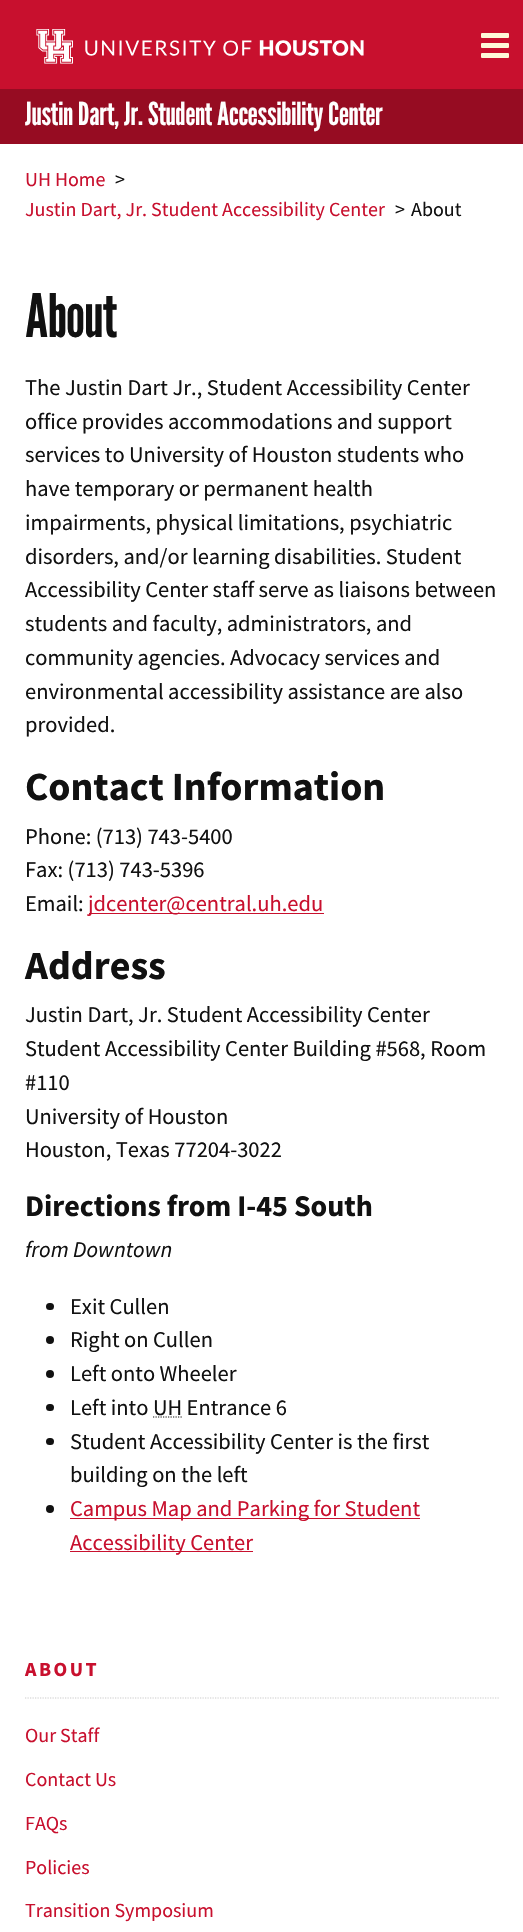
void draw(SkCanvas* canvas) {
	SkPaint paint;
	paint.setAntiAlias(true);
	auto spacedText = [&](const char* s, float x, float y, const SkFont& font, const SkPaint& ink, float letter, float word) {
		std::vector<SkGlyphID> glyphs(font.countText(s, strlen(s), SkTextEncoding::kUTF8));
		std::vector<float> xs(glyphs.size());
		font.textToGlyphs(s, strlen(s), SkTextEncoding::kUTF8, glyphs);
		font.getXPos(glyphs, xs, x);
		float extra = 0;
		for (size_t i = 0; i < glyphs.size(); i++) {
			xs[i] += extra;
			extra += letter + word * (glyphs[i] == font.unicharToGlyph(' '));
		}
		canvas->drawTextBlob(SkTextBlob::MakeFromPosHGlyphs(glyphs, xs, y, font), 0, 0, ink);
	};
	auto svgPath = [&](const char* data, bool evenOdd = false) {
		SkPath result = *SkParsePath::FromSVGString(data);
		if (evenOdd) result.setFillType(SkPathFillType::kEvenOdd);
		return result;
	};
	canvas->clear(0xffffffff);
	paint.setColor(0xffc8102e);
	canvas->drawRect(SkRect::MakeXYWH(0, 0, 523, 89), paint);
	canvas->drawImageRect(SkImages::DeferredFromEncodedData(SkData::MakeFromFileName("img1.png")), SkRect::MakeXYWH(36, 29, 328, 35), SkSamplingOptions());
	paint.setColor(0xfffff9d9);
	canvas->drawRoundRect(SkRect::MakeXYWH(481, 33, 28, 5), 1, 1, paint);
	canvas->drawRoundRect(SkRect::MakeXYWH(481, 43, 28, 5), 1, 1, paint);
	canvas->drawRoundRect(SkRect::MakeXYWH(481, 53, 28, 5), 1, 1, paint);
	paint.setColor(0xff960c22);
	canvas->drawRect(SkRect::MakeXYWH(0, 89, 523, 55), paint);
	SkFont f1(fontMgr->matchFamilyStyle("League Gothic", SkFontStyle::Normal()), 31.5);
	f1.setSubpixel(true);
	paint.setColor(0xffffffff);
	canvas->drawString("Justin Dart, Jr. Student Accessibility Center", 25, 125, f1, paint);
	SkFont f2(fontMgr->matchFamilyStyle("Source Sans Pro", SkFontStyle::Normal()), 20);
	f2.setSubpixel(true);
	paint.setColor(0xffc8102e);
	canvas->drawString("UH Home", 25, 186, f2, paint);
	paint.setColor(0xff111111);
	canvas->drawString(">", 115, 186, f2, paint);
	paint.setColor(0xffc8102e);
	canvas->drawString("Justin Dart, Jr. Student Accessibility Center", 25, 216, f2, paint);
	paint.setColor(0xff111111);
	canvas->drawString(">", 395, 216, f2, paint);
	canvas->drawString("About", 411, 216, f2, paint);
	SkFont f3(fontMgr->matchFamilyStyle("League Gothic", SkFontStyle::Normal()), 60);
	f3.setSubpixel(true);
	canvas->drawString("About", 25, 337, f3, paint);
	SkFont f4(fontMgr->matchFamilyStyle("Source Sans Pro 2", SkFontStyle::Normal()), 22.5);
	f4.setSubpixel(true);
	canvas->drawString("The Justin Dart Jr., Student Accessibility Center", 25, 395, f4, paint);
	canvas->drawString("office provides accommodations and support", 25, 429, f4, paint);
	canvas->drawString("services to University of Houston students who", 25, 462, f4, paint);
	canvas->drawString("have temporary or permanent health", 25, 496, f4, paint);
	canvas->drawString("impairments, physical limitations, psychiatric", 25, 530, f4, paint);
	canvas->drawString("disorders, and/or learning disabilities. Student", 25, 564, f4, paint);
	canvas->drawString("Accessibility Center staff serve as liaisons between", 25, 597, f4, paint);
	canvas->drawString("students and faculty, administrators, and", 25, 631, f4, paint);
	canvas->drawString("community agencies. Advocacy services and", 25, 665, f4, paint);
	canvas->drawString("environmental accessibility assistance are also", 25, 699, f4, paint);
	canvas->drawString("provided.", 25, 732, f4, paint);
	SkFont f5(fontMgr->matchFamilyStyle("Source Sans Pro", SkFontStyle::Bold()), 40);
	f5.setSubpixel(true);
	canvas->drawString("Contact Information", 25, 800, f5, paint);
	canvas->drawString("Phone: (713) 743-5400", 25, 844, f4, paint);
	canvas->drawString("Fax: (713) 743-5396", 25, 877, f4, paint);
	canvas->drawString("Email:", 25, 911, f4, paint);
	paint.setColor(0xffc8102e);
	canvas->drawRect(SkRect::MakeXYWH(89, 913, 235, 1), paint);
	canvas->drawString("jdcenter@central.uh.edu", 88, 911, f4, paint);
	paint.setColor(0xff111111);
	canvas->drawString("Address", 25, 979, f5, paint);
	canvas->drawString("Justin Dart, Jr. Student Accessibility Center", 25, 1022, f4, paint);
	canvas->drawString("Student Accessibility Center Building #568, Room", 25, 1056, f4, paint);
	canvas->drawString("#110", 25, 1090, f4, paint);
	canvas->drawString("University of Houston", 25, 1124, f4, paint);
	canvas->drawString("Houston, Texas 77204-3022", 25, 1157, f4, paint);
	SkFont f6(fontMgr->matchFamilyStyle("Source Sans Pro", SkFontStyle::Bold()), 30);
	f6.setSubpixel(true);
	canvas->drawString("Directions from I-45 South", 25, 1216, f6, paint);
	SkFont f7(fontMgr->matchFamilyStyle("Source Sans Pro", SkFontStyle::Italic()), 22.5);
	f7.setSubpixel(true);
	canvas->drawString("from Downtown", 25, 1257, f7, paint);
	canvas->drawRoundRect(SkRect::MakeXYWH(46, 1303, 8, 7), 3.5, 3.5, paint);
	canvas->drawString("Exit Cullen", 70, 1314, f4, paint);
	canvas->drawCircle(50, 1340, 4, paint);
	canvas->drawString("Right on Cullen", 70, 1347, f4, paint);
	canvas->drawCircle(50, 1374, 4, paint);
	canvas->drawString("Left onto Wheeler", 70, 1381, f4, paint);
	canvas->drawRoundRect(SkRect::MakeXYWH(46, 1404, 8, 7), 3.5, 3.5, paint);
	canvas->drawString("Left into UH Entrance 6", 70, 1415, f4, paint);
	paint.setStroke(true);
	paint.setStrokeWidth(1.2);
	paint.setPathEffect(SkDashPathEffect::Make({{1.25f, 1.25f}}, 0));
	canvas->drawPath(svgPath("M153 1417H182"), paint);
	paint.setPathEffect(nullptr);
	paint.setStroke(false);
	canvas->drawRoundRect(SkRect::MakeXYWH(46, 1438, 8, 7), 3.5, 3.5, paint);
	canvas->drawString("Student Accessibility Center is the first", 70, 1449, f4, paint);
	canvas->drawString("building on the left", 70, 1482, f4, paint);
	canvas->drawCircle(50, 1509, 4, paint);
	paint.setColor(0xffc8102e);
	canvas->drawRect(SkRect::MakeXYWH(70, 1518, 350, 1), paint);
	canvas->drawString("Campus Map and Parking for Student", 70, 1516, f4, paint);
	canvas->drawRect(SkRect::MakeXYWH(70, 1551, 183, 1), paint);
	canvas->drawString("Accessibility Center", 70, 1550, f4, paint);
	paint.setStroke(true);
	paint.setColor(0xffcccccc);
	paint.setPathEffect(SkDashPathEffect::Make({{1.25f, 1.25f}}, 0));
	canvas->drawPath(svgPath("M25 1698H499"), paint);
	paint.setPathEffect(nullptr);
	SkFont f8(fontMgr->matchFamilyStyle("Source Sans Pro", SkFontStyle::Bold()), 20);
	f8.setSubpixel(true);
	paint.setStroke(false);
	paint.setColor(0xffc8102e);
	spacedText("ABOUT", 25, 1676, f8, paint, 2.5, 0);
	SkFont f9(fontMgr->matchFamilyStyle("Source Sans Pro 2", SkFontStyle::Normal()), 20);
	f9.setSubpixel(true);
	canvas->drawString("Our Staff", 25, 1742, f9, paint);
	canvas->drawString("Contact Us", 25, 1786, f9, paint);
	canvas->drawString("FAQs", 25, 1830, f9, paint);
	canvas->drawString("Policies", 25, 1874, f9, paint);
	canvas->drawString("Transition Symposium", 25, 1917, f9, paint);
}
